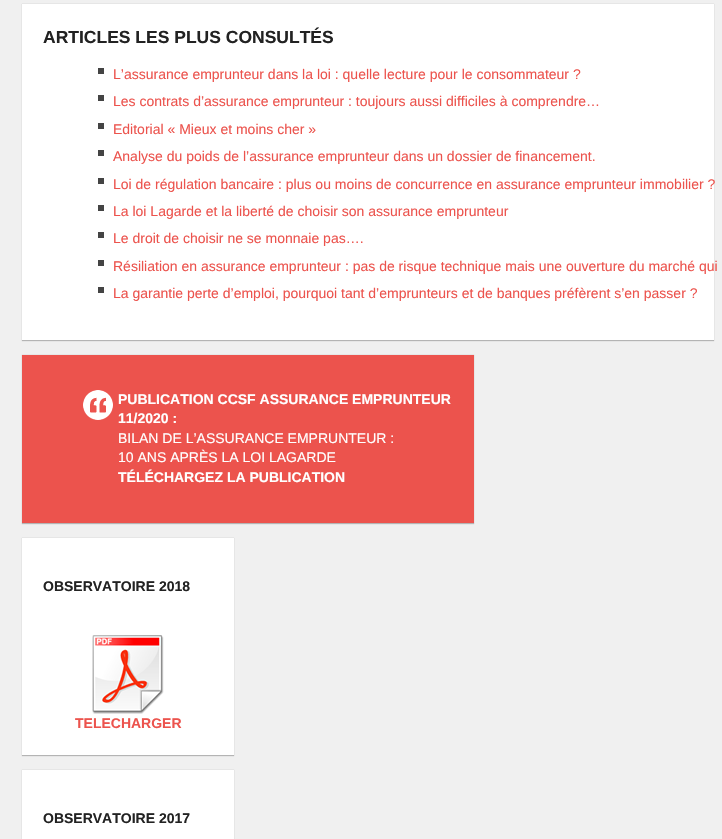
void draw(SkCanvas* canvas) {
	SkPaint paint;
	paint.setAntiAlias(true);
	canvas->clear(0xfff0f0f0);
	paint.setColor(0x40000000);
	paint.setMaskFilter(SkMaskFilter::MakeBlur(kNormal_SkBlurStyle, 0.5));
	canvas->drawRect(SkRect::MakeXYWH(22, 4, 692, 337), paint);
	paint.setMaskFilter(nullptr);
	paint.setColor(0xffffffff);
	canvas->drawRect(SkRect::MakeXYWH(22, 4, 692, 336), paint);
	paint.setColor(0xffe6e6e6);
	canvas->drawRect(SkRect::MakeXYWH(22, 3, 692, 1), paint);
	SkFont f1(fontMgr->matchFamilyStyle("Liberation Sans", SkFontStyle::Bold()), 17.5);
	f1.setSubpixel(true);
	paint.setColor(0xff222222);
	canvas->drawString("ARTICLES LES PLUS CONSULTÉS", 43, 43, f1, paint);
	paint.setColor(0xff444444);
	canvas->drawRect(SkRect::MakeXYWH(98, 68, 6, 6), paint);
	SkFont f2(fontMgr->matchFamilyStyle("Liberation Sans", SkFontStyle::Normal()), 14);
	f2.setSubpixel(true);
	paint.setColor(0xffec534d);
	canvas->drawString("L’assurance emprunteur dans la loi : quelle lecture pour le consommateur ?", 113, 79, f2, paint);
	paint.setColor(0xff444444);
	canvas->drawRect(SkRect::MakeXYWH(98, 95, 6, 6), paint);
	paint.setColor(0xffec534d);
	canvas->drawString("Les contrats d’assurance emprunteur : toujours aussi difficiles à comprendre…", 113, 106, f2, paint);
	paint.setColor(0xff444444);
	canvas->drawRect(SkRect::MakeXYWH(98, 123, 6, 6), paint);
	paint.setColor(0xffec534d);
	canvas->drawString("Editorial « Mieux et moins cher »", 113, 134, f2, paint);
	paint.setColor(0xff444444);
	canvas->drawRect(SkRect::MakeXYWH(98, 150, 6, 6), paint);
	paint.setColor(0xffec534d);
	canvas->drawString("Analyse du poids de l’assurance emprunteur dans un dossier de financement.", 113, 161, f2, paint);
	paint.setColor(0xff444444);
	canvas->drawRect(SkRect::MakeXYWH(98, 178, 6, 6), paint);
	paint.setColor(0xffec534d);
	canvas->drawString("Loi de régulation bancaire : plus ou moins de concurrence en assurance emprunteur immobilier ?", 113, 189, f2, paint);
	paint.setColor(0xff444444);
	canvas->drawRect(SkRect::MakeXYWH(98, 205, 6, 6), paint);
	paint.setColor(0xffec534d);
	canvas->drawString("La loi Lagarde et la liberté de choisir son assurance emprunteur", 113, 216, f2, paint);
	paint.setColor(0xff444444);
	canvas->drawRect(SkRect::MakeXYWH(98, 232, 6, 6), paint);
	paint.setColor(0xffec534d);
	canvas->drawString("Le droit de choisir ne se monnaie pas….", 113, 243, f2, paint);
	paint.setColor(0xff444444);
	canvas->drawRect(SkRect::MakeXYWH(98, 260, 6, 6), paint);
	paint.setColor(0xffec534d);
	canvas->drawString("Résiliation en assurance emprunteur : pas de risque technique mais une ouverture du marché qui", 113, 271, f2, paint);
	paint.setColor(0xff444444);
	canvas->drawRect(SkRect::MakeXYWH(98, 287, 6, 6), paint);
	paint.setColor(0xffec534d);
	canvas->drawString("La garantie perte d’emploi, pourquoi tant d’emprunteurs et de banques préfèrent s’en passer ?", 113, 298, f2, paint);
	paint.setColor(0x40000000);
	paint.setMaskFilter(SkMaskFilter::MakeBlur(kNormal_SkBlurStyle, 0.5));
	canvas->drawRect(SkRect::MakeXYWH(22, 355, 452, 169), paint);
	paint.setMaskFilter(nullptr);
	paint.setColor(0xffec534d);
	canvas->drawRect(SkRect::MakeXYWH(22, 355, 452, 168), paint);
	paint.setColor(0xffe6e6e6);
	canvas->drawRect(SkRect::MakeXYWH(22, 354, 452, 1), paint);
	canvas->drawImageRect(SkImages::DeferredFromEncodedData(SkData::MakeFromFileName("img1.png")), SkRect::MakeXYWH(83, 390, 30, 30), SkSamplingOptions());
	SkFont f3(fontMgr->matchFamilyStyle("Liberation Sans", SkFontStyle::Bold()), 14);
	f3.setSubpixel(true);
	paint.setColor(0xffffffff);
	canvas->drawString("PUBLICATION CCSF ASSURANCE EMPRUNTEUR", 118, 404, f3, paint);
	canvas->drawString("11/2020 :", 118, 423, f3, paint);
	canvas->drawString("BILAN DE L’ASSURANCE EMPRUNTEUR :", 118, 443, f2, paint);
	canvas->drawString("10 ANS APRÈS LA LOI LAGARDE", 118, 462, f2, paint);
	canvas->drawString("TÉLÉCHARGEZ LA PUBLICATION", 118, 482, f3, paint);
	paint.setColor(0x40000000);
	paint.setMaskFilter(SkMaskFilter::MakeBlur(kNormal_SkBlurStyle, 0.5));
	canvas->drawRect(SkRect::MakeXYWH(22, 538, 212, 218), paint);
	paint.setMaskFilter(nullptr);
	paint.setColor(0xffffffff);
	canvas->drawRect(SkRect::MakeXYWH(22, 538, 212, 217), paint);
	paint.setColor(0xffe6e6e6);
	canvas->drawRect(SkRect::MakeXYWH(22, 537, 212, 1), paint);
	paint.setColor(0xff222222);
	canvas->drawString("OBSERVATOIRE 2018", 43, 591, f3, paint);
	canvas->drawImageRect(SkImages::DeferredFromEncodedData(SkData::MakeFromFileName("img2.png")), SkRect::MakeXYWH(92, 635, 72, 79), SkSamplingOptions());
	paint.setColor(0xffec534d);
	canvas->drawString("TELECHARGER", 75, 728, f3, paint);
	paint.setColor(0x40000000);
	paint.setMaskFilter(SkMaskFilter::MakeBlur(kNormal_SkBlurStyle, 0.5));
	canvas->drawRect(SkRect::MakeXYWH(22, 770, 212, 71), paint);
	paint.setMaskFilter(nullptr);
	paint.setColor(0xffffffff);
	canvas->drawRect(SkRect::MakeXYWH(22, 770, 212, 69), paint);
	paint.setColor(0xffe6e6e6);
	canvas->drawRect(SkRect::MakeXYWH(22, 769, 212, 1), paint);
	paint.setColor(0xff222222);
	canvas->drawString("OBSERVATOIRE 2017", 43, 823, f3, paint);
}
